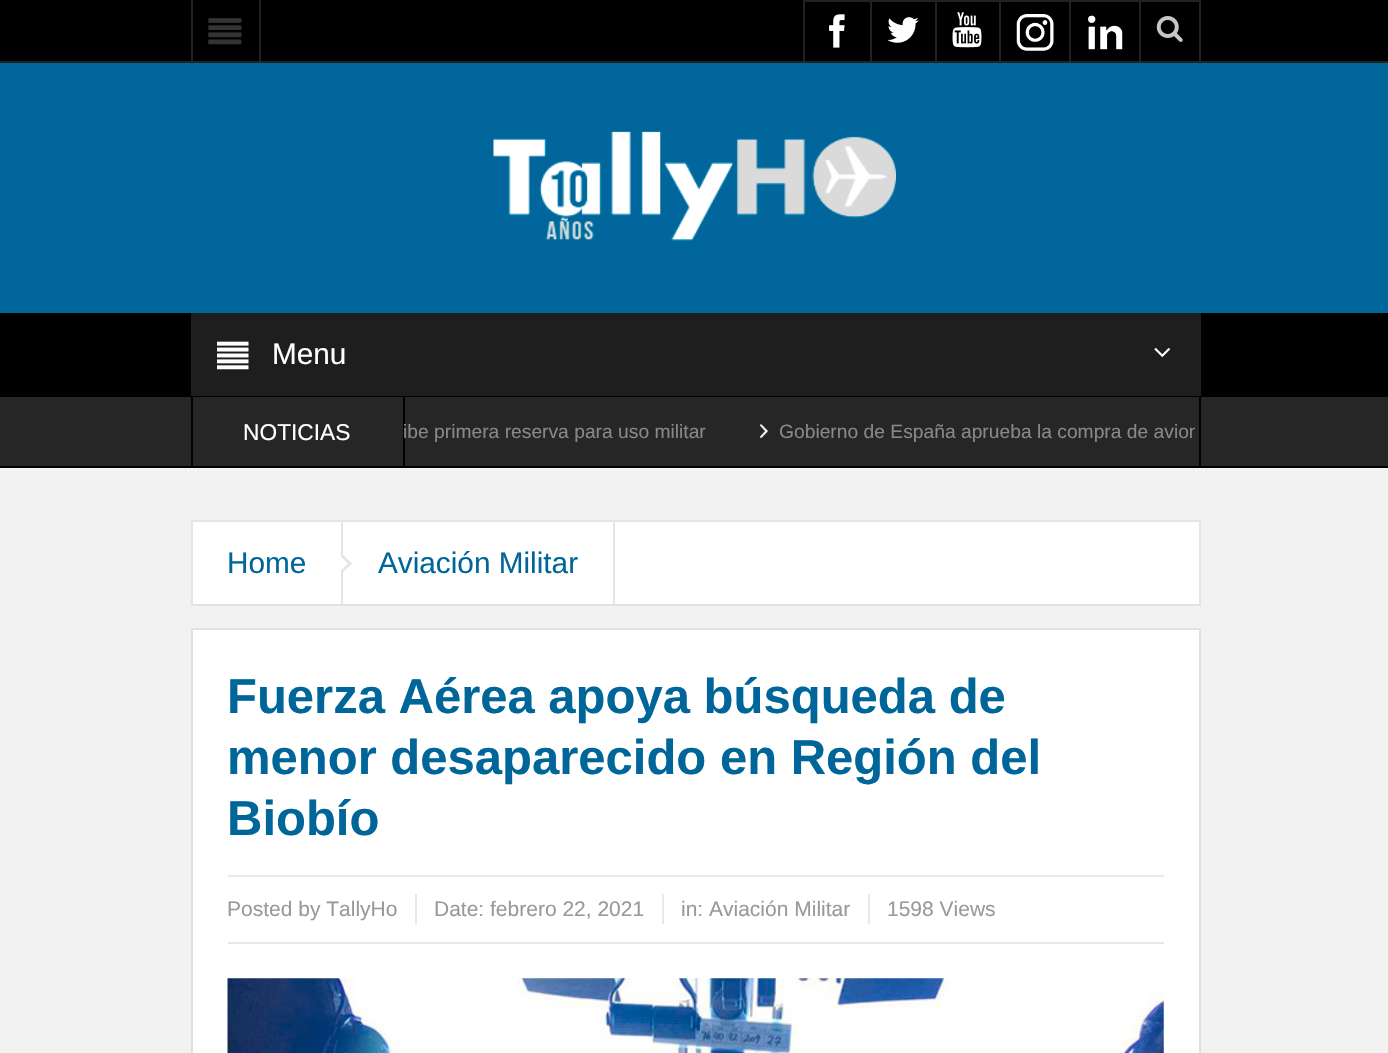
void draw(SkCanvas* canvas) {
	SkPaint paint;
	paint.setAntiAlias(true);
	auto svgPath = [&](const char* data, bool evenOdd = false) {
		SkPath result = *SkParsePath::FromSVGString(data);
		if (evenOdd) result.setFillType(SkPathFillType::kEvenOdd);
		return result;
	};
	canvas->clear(0xfff2f2f2);
	paint.setColor(0xff000000);
	canvas->drawRect(SkRect::MakeXYWH(0, 0, 1388, 61), paint);
	paint.setColor(0xff222222);
	canvas->drawRect(SkRect::MakeXYWH(0, 61, 1388, 2), paint);
	canvas->drawRect(SkRect::MakeXYWH(259, 0, 2, 61), paint);
	canvas->drawRect(SkRect::MakeXYWH(191, 0, 2, 61), paint);
	canvas->drawImageRect(SkImages::DeferredFromEncodedData(SkData::MakeFromFileName("img1.png")), SkRect::MakeXYWH(208, 18, 34, 27), SkSamplingOptions());
	canvas->drawRect(SkRect::MakeXYWH(803, 0, 398, 2), paint);
	canvas->drawRect(SkRect::MakeXYWH(803, 0, 2, 61), paint);
	canvas->drawImageRect(SkImages::DeferredFromEncodedData(SkData::MakeFromFileName("img2.png")), SkRect::MakeXYWH(829, 14, 16, 34), SkSamplingOptions());
	canvas->drawRect(SkRect::MakeXYWH(870, 0, 2, 61), paint);
	canvas->drawImageRect(SkImages::DeferredFromEncodedData(SkData::MakeFromFileName("img3.png")), SkRect::MakeXYWH(887, 17, 32, 26), SkSamplingOptions());
	canvas->drawRect(SkRect::MakeXYWH(935, 0, 2, 61), paint);
	canvas->drawImageRect(SkImages::DeferredFromEncodedData(SkData::MakeFromFileName("img4.png")), SkRect::MakeXYWH(952, 12, 30, 36), SkSamplingOptions());
	canvas->drawRect(SkRect::MakeXYWH(999, 0, 2, 61), paint);
	canvas->drawImageRect(SkImages::DeferredFromEncodedData(SkData::MakeFromFileName("img5.png")), SkRect::MakeXYWH(1016, 14, 38, 37), SkSamplingOptions());
	canvas->drawRect(SkRect::MakeXYWH(1069, 0, 2, 61), paint);
	canvas->drawImageRect(SkImages::DeferredFromEncodedData(SkData::MakeFromFileName("img6.png")), SkRect::MakeXYWH(1088, 15, 35, 35), SkSamplingOptions());
	canvas->drawRect(SkRect::MakeXYWH(1199, 0, 2, 61), paint);
	canvas->drawRect(SkRect::MakeXYWH(1139, 0, 2, 61), paint);
	canvas->drawImageRect(SkImages::DeferredFromEncodedData(SkData::MakeFromFileName("img7.png")), SkRect::MakeXYWH(1156, 16, 27, 26), SkSamplingOptions());
	paint.setColor(0xff006699);
	canvas->drawRect(SkRect::MakeXYWH(0, 63, 1388, 250), paint);
	canvas->drawImageRect(SkImages::DeferredFromEncodedData(SkData::MakeFromFileName("img8.png")), SkRect::MakeXYWH(493, 131, 403, 110), SkSamplingOptions());
	paint.setColor(0xff000000);
	canvas->drawRect(SkRect::MakeXYWH(0, 313, 1388, 84), paint);
	paint.setColor(0xff1e1e1e);
	canvas->drawRect(SkRect::MakeXYWH(191, 313, 1010, 83), paint);
	canvas->drawImageRect(SkImages::DeferredFromEncodedData(SkData::MakeFromFileName("img9.png")), SkRect::MakeXYWH(217, 341, 32, 29), SkSamplingOptions());
	SkFont f1(fontMgr->matchFamilyStyle("Liberation Sans", SkFontStyle::Normal()), 29.75);
	f1.setSubpixel(true);
	paint.setColor(0xffffffff);
	canvas->drawString("Menu", 272, 364, f1, paint);
	canvas->drawImageRect(SkImages::DeferredFromEncodedData(SkData::MakeFromFileName("img10.png")), SkRect::MakeXYWH(1154, 348, 16, 9), SkSamplingOptions());
	paint.setColor(0xff262626);
	canvas->drawRect(SkRect::MakeXYWH(0, 397, 1388, 69), paint);
	paint.setColor(0xff000000);
	canvas->drawRect(SkRect::MakeXYWH(0, 466, 1388, 2), paint);
	canvas->drawRect(SkRect::MakeXYWH(403, 397, 2, 69), paint);
	canvas->drawRect(SkRect::MakeXYWH(191, 397, 2, 69), paint);
	SkFont f2(fontMgr->matchFamilyStyle("Liberation Sans", SkFontStyle::Normal()), 22.75);
	f2.setSubpixel(true);
	paint.setColor(0xffffffff);
	canvas->drawString("NOTICIAS", 243, 440, f2, paint);
	paint.setColor(0xff000000);
	canvas->drawRect(SkRect::MakeXYWH(1199, 397, 2, 69), paint);
	canvas->save();
	canvas->clipRect(SkRect::MakeXYWH(404, 397, 791, 69));
	SkFont f3(fontMgr->matchFamilyStyle("Liberation Sans", SkFontStyle::Normal()), 19.25);
	f3.setSubpixel(true);
	paint.setColor(0xff888888);
	canvas->drawString("ibe primera reserva para uso militar", 403, 438, f3, paint);
	canvas->restore();
	canvas->drawImageRect(SkImages::DeferredFromEncodedData(SkData::MakeFromFileName("img11.png")), SkRect::MakeXYWH(760, 424, 8, 14), SkSamplingOptions());
	canvas->save();
	canvas->clipRect(SkRect::MakeXYWH(404, 397, 791, 69));
	canvas->drawString("Gobierno de España aprueba la compra de avion", 779, 438, f3, paint);
	canvas->restore();
	paint.setColor(0xffffffff);
	canvas->drawRect(SkRect::MakeXYWH(193, 522, 1006, 82), paint);
	paint.setColor(0xffe5e5e5);
	canvas->drawRect(SkRect::MakeXYWH(191, 520, 1010, 2), paint);
	canvas->drawRect(SkRect::MakeXYWH(1199, 520, 2, 86), paint);
	paint.setColor(0xffe1e1e1);
	canvas->drawRect(SkRect::MakeXYWH(191, 604, 1010, 2), paint);
	paint.setColor(0xffe5e5e5);
	canvas->drawRect(SkRect::MakeXYWH(191, 520, 2, 86), paint);
	canvas->drawRect(SkRect::MakeXYWH(341, 522, 2, 82), paint);
	paint.setColor(0xff006699);
	canvas->drawString("Home", 227, 573, f1, paint);
	paint.setColor(0xffe5e5e5);
	canvas->drawPath(svgPath("M341 574V553L352 563.5Z"), paint);
	paint.setColor(0xffffffff);
	canvas->drawPath(svgPath("M341 570.5V556.5L348 563.5Z"), paint);
	paint.setColor(0xffe5e5e5);
	canvas->drawRect(SkRect::MakeXYWH(613, 522, 2, 82), paint);
	paint.setColor(0xff006699);
	canvas->drawString("Aviación Militar", 378, 573, f1, paint);
	paint.setColor(0xffffffff);
	canvas->drawRect(SkRect::MakeXYWH(192, 629, 1008, 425), paint);
	paint.setStroke(true);
	paint.setStrokeWidth(2);
	paint.setColor(0xffe1e1e1);
	canvas->drawRect(SkRect::MakeXYWH(192, 629, 1008, 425), paint);
	SkFont f4(fontMgr->matchFamilyStyle("Liberation Sans", SkFontStyle::Bold()), 49);
	f4.setSubpixel(true);
	paint.setStroke(false);
	paint.setColor(0xff006699);
	canvas->drawString("Fuerza Aérea apoya búsqueda de", 227, 713, f4, paint);
	canvas->drawString("menor desaparecido en Región del", 227, 774, f4, paint);
	canvas->drawString("Biobío", 227, 835, f4, paint);
	paint.setColor(0xffe9e9e9);
	canvas->drawRect(SkRect::MakeXYWH(228, 875, 936, 2), paint);
	canvas->drawRect(SkRect::MakeXYWH(228, 942, 936, 2), paint);
	canvas->drawRect(SkRect::MakeXYWH(415, 894, 2, 30), paint);
	SkFont f5(fontMgr->matchFamilyStyle("Liberation Sans", SkFontStyle::Normal()), 21);
	f5.setSubpixel(true);
	paint.setColor(0xff999999);
	canvas->drawString("Posted by TallyHo", 227, 916, f5, paint);
	paint.setColor(0xffe9e9e9);
	canvas->drawRect(SkRect::MakeXYWH(662, 894, 2, 30), paint);
	paint.setColor(0xff999999);
	canvas->drawString("Date: febrero 22, 2021", 434, 916, f5, paint);
	paint.setColor(0xffe9e9e9);
	canvas->drawRect(SkRect::MakeXYWH(868, 894, 2, 30), paint);
	paint.setColor(0xff999999);
	canvas->drawString("in: Aviación Militar", 681, 916, f5, paint);
	canvas->drawString("1598 Views", 887, 916, f5, paint);
	canvas->drawImageRect(SkImages::DeferredFromEncodedData(SkData::MakeFromFileName("img12.png")), SkRect::MakeXYWH(227, 978, 937, 75), SkSamplingOptions());
}
